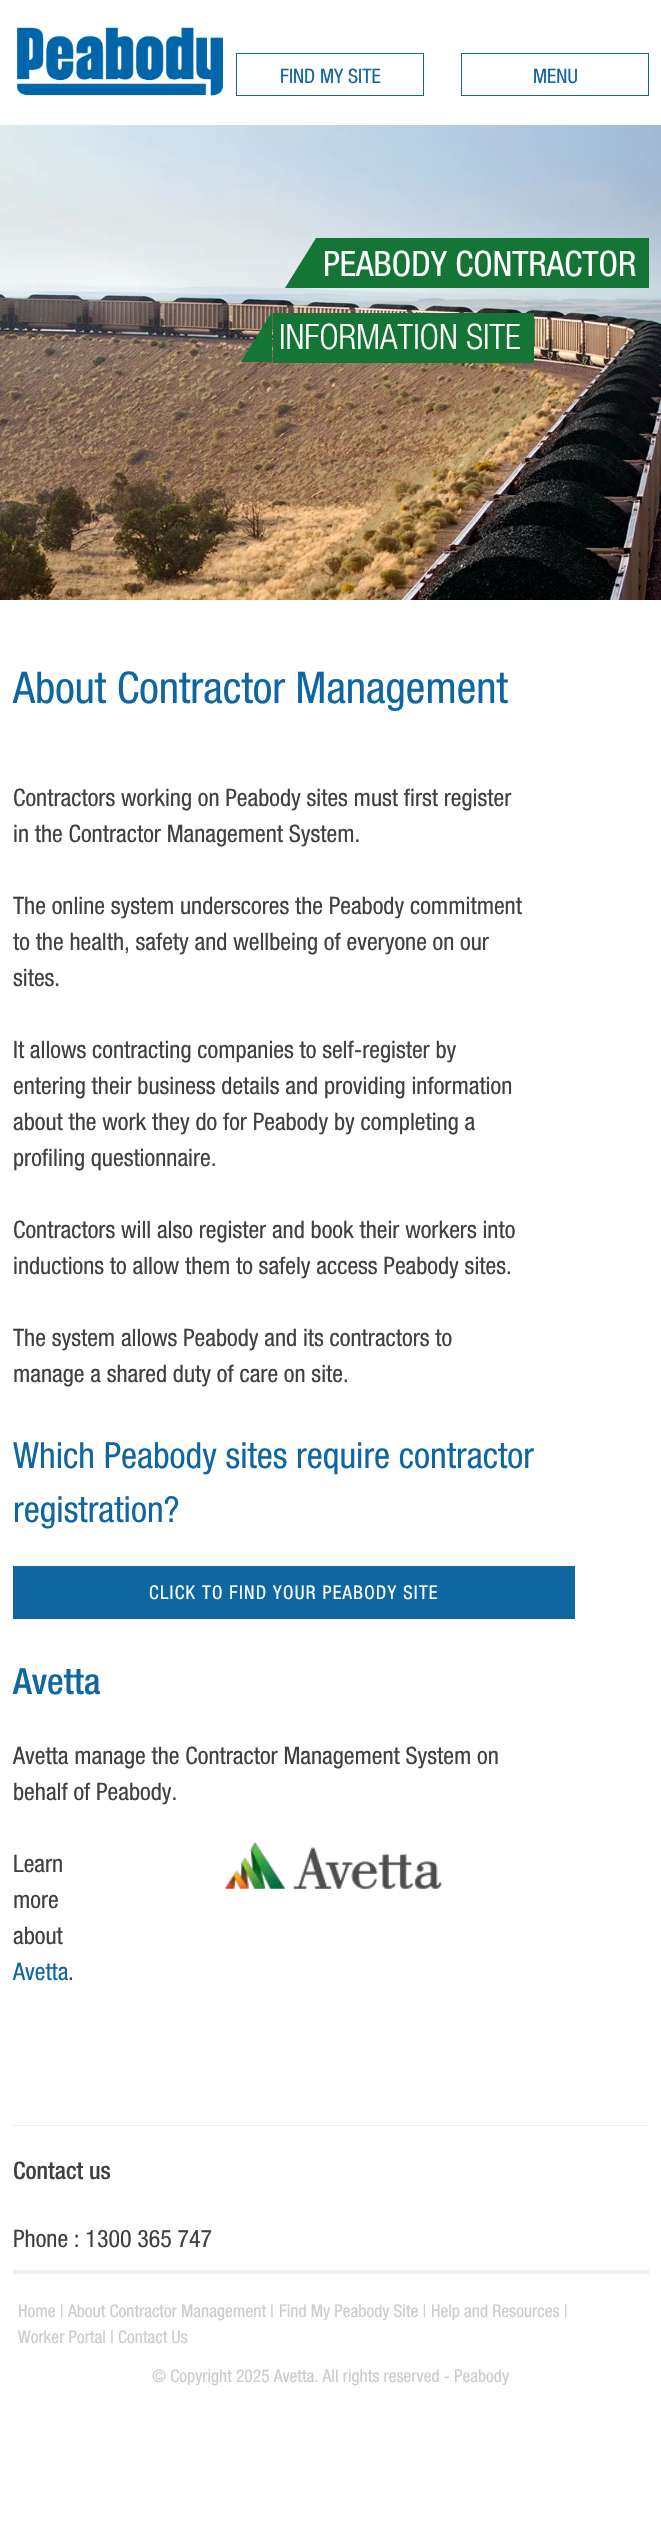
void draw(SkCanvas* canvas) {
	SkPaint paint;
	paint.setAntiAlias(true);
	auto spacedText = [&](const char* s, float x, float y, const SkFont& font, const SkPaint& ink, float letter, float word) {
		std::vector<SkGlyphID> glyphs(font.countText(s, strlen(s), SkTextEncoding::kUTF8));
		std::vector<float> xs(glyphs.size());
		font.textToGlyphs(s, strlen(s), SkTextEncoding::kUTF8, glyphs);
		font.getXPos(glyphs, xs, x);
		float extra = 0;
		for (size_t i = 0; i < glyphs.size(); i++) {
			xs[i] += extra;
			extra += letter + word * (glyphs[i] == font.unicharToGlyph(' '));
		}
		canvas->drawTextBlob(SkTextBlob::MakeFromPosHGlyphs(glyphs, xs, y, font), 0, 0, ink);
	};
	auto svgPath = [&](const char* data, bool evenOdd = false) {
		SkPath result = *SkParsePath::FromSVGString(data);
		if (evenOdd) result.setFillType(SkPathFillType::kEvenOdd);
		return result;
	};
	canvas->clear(0xffffffff);
	canvas->drawImageRect(SkImages::DeferredFromEncodedData(SkData::MakeFromFileName("img1.png")), SkRect::MakeXYWH(16, 27, 207, 69), SkSamplingOptions());
	paint.setStroke(true);
	paint.setStrokeWidth(1);
	paint.setColor(0xff0f67a2);
	canvas->drawRect(SkRect::MakeXYWH(236.5, 53.5, 187, 42), paint);
	SkFont f1(fontMgr->matchFamilyStyle("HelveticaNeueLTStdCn", SkFontStyle::Normal()), 20);
	f1.setSubpixel(true);
	paint.setStroke(false);
	canvas->drawString("FIND MY SITE", 280, 83, f1, paint);
	paint.setStroke(true);
	canvas->drawRect(SkRect::MakeXYWH(461.5, 53.5, 187, 42), paint);
	paint.setStroke(false);
	canvas->drawString("MENU", 533, 83, f1, paint);
	canvas->drawImageRect(SkImages::DeferredFromEncodedData(SkData::MakeFromFileName("img3.png")), SkRect::MakeXYWH(0, 125, 661, 475), SkSamplingOptions());
	paint.setColor(0xff147537);
	canvas->drawRect(SkRect::MakeXYWH(316, 238, 333, 50), paint);
	canvas->drawPath(svgPath("M316 288H285L316 238Z"), paint);
	SkFont f2(fontMgr->matchFamilyStyle("HelveticaNeueLTStdCn", SkFontStyle::Normal()), 35);
	f2.setSubpixel(true);
	paint.setColor(0xffffffff);
	canvas->drawString("PEABODY CONTRACTOR", 323, 276, f2, paint);
	paint.setColor(0xff147537);
	canvas->drawRect(SkRect::MakeXYWH(273, 313, 261, 50), paint);
	canvas->drawPath(svgPath("M272 362H241L272 312Z"), paint);
	SkFont f3(fontMgr->matchFamilyStyle("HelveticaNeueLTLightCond", SkFontStyle::Normal()), 35);
	f3.setSubpixel(true);
	paint.setColor(0xffffffff);
	canvas->drawString("INFORMATION SITE", 279, 349, f3, paint);
	SkFont f4(fontMgr->matchFamilyStyle("HelveticaNeueLTStdCn", SkFontStyle::Normal()), 43.75);
	f4.setSubpixel(true);
	paint.setColor(0xff0f67a2);
	canvas->drawString("About Contractor Management", 13, 703, f4, paint);
	SkFont f5(fontMgr->matchFamilyStyle("HelveticaNeueLTStdCn", SkFontStyle::Normal()), 24);
	f5.setSubpixel(true);
	paint.setColor(0xff404040);
	canvas->drawString("Contractors working on Peabody sites must first register", 13, 806, f5, paint);
	canvas->drawString("in the Contractor Management System.", 13, 842, f5, paint);
	canvas->drawString("The online system underscores the Peabody commitment", 13, 914, f5, paint);
	canvas->drawString("to the health, safety and wellbeing of everyone on our", 13, 950, f5, paint);
	canvas->drawString("sites.", 13, 986, f5, paint);
	canvas->drawString("It allows contracting companies to self-register by", 13, 1058, f5, paint);
	canvas->drawString("entering their business details and providing information", 13, 1094, f5, paint);
	canvas->drawString("about the work they do for Peabody by completing a", 13, 1130, f5, paint);
	canvas->drawString("profiling questionnaire.", 13, 1166, f5, paint);
	canvas->drawString("Contractors will also register and book their workers into", 13, 1238, f5, paint);
	canvas->drawString("inductions to allow them to safely access Peabody sites.", 13, 1274, f5, paint);
	canvas->drawString("The system allows Peabody and its contractors to", 13, 1346, f5, paint);
	canvas->drawString("manage a shared duty of care on site.", 13, 1382, f5, paint);
	SkFont f6(fontMgr->matchFamilyStyle("HelveticaNeueLTStdCn", SkFontStyle::Normal()), 36);
	f6.setSubpixel(true);
	paint.setColor(0xff0f67a2);
	canvas->drawString("Which Peabody sites require contractor", 13, 1468, f6, paint);
	canvas->drawString("registration?", 13, 1522, f6, paint);
	canvas->drawRect(SkRect::MakeXYWH(13, 1566, 562, 53), paint);
	SkFont f7(fontMgr->matchFamilyStyle("HelveticaNeueLTStdCn", SkFontStyle::Normal()), 18.75);
	f7.setSubpixel(true);
	paint.setColor(0xffffffff);
	spacedText("CLICK TO FIND YOUR PEABODY SITE", 149, 1599, f7, paint, 1.25, 0);
	SkFont f8(fontMgr->matchFamilyStyle("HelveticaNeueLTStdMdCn", SkFontStyle::Normal()), 36);
	f8.setSubpixel(true);
	paint.setColor(0xff0f67a2);
	canvas->drawString("Avetta", 13, 1694, f8, paint);
	paint.setColor(0xff404040);
	canvas->drawString("Avetta manage the Contractor Management System on", 13, 1764, f5, paint);
	canvas->drawString("behalf of Peabody.", 13, 1800, f5, paint);
	canvas->drawImageRect(SkImages::DeferredFromEncodedData(SkData::MakeFromFileName("img2.png")), SkRect::MakeXYWH(224, 1842, 218, 47), SkSamplingOptions());
	canvas->drawString("Learn", 13, 1872, f5, paint);
	canvas->drawString("more", 13, 1908, f5, paint);
	canvas->drawString("about", 13, 1944, f5, paint);
	paint.setColor(0xff0f67a2);
	canvas->drawString("Avetta", 13, 1980, f5, paint);
	paint.setColor(0xff404040);
	canvas->drawString(".", 68, 1980, f5, paint);
	paint.setColor(0xffeeeeee);
	canvas->drawRect(SkRect::MakeXYWH(13, 2125, 636, 1), paint);
	SkFont f9(fontMgr->matchFamilyStyle("HelveticaNeueLTStdMdCn", SkFontStyle::Normal()), 24);
	f9.setSubpixel(true);
	paint.setColor(0xff404040);
	canvas->drawString("Contact us", 13, 2179, f9, paint);
	canvas->drawString("Phone : 1300 365 747", 13, 2247, f5, paint);
	paint.setColor(0xffeeeeee);
	canvas->drawRect(SkRect::MakeXYWH(13, 2270, 636, 4), paint);
	SkFont f10(fontMgr->matchFamilyStyle("HelveticaNeueLTStdCn", SkFontStyle::Normal()), 17.5);
	f10.setSubpixel(true);
	paint.setColor(0xffcccccc);
	canvas->drawString("Home |", 18, 2317, f10, paint);
	canvas->drawString("About Contractor Management |", 68, 2317, f10, paint);
	canvas->drawString("Find My Peabody Site |", 279, 2317, f10, paint);
	canvas->drawString("Help and Resources |", 431, 2317, f10, paint);
	canvas->drawString("Worker Portal |", 18, 2343, f10, paint);
	canvas->drawString("Contact Us", 118, 2343, f10, paint);
	canvas->drawString("© Copyright 2025 Avetta. All rights reserved", 152, 2382, f10, paint);
	SkFont f11(fontMgr->matchFamilyStyle("Liberation Sans", SkFontStyle::Normal()), 17.5);
	f11.setSubpixel(true);
	canvas->drawString("‐", 444, 2382, f11, paint);
	canvas->drawString("Peabody", 454, 2382, f10, paint);
}
